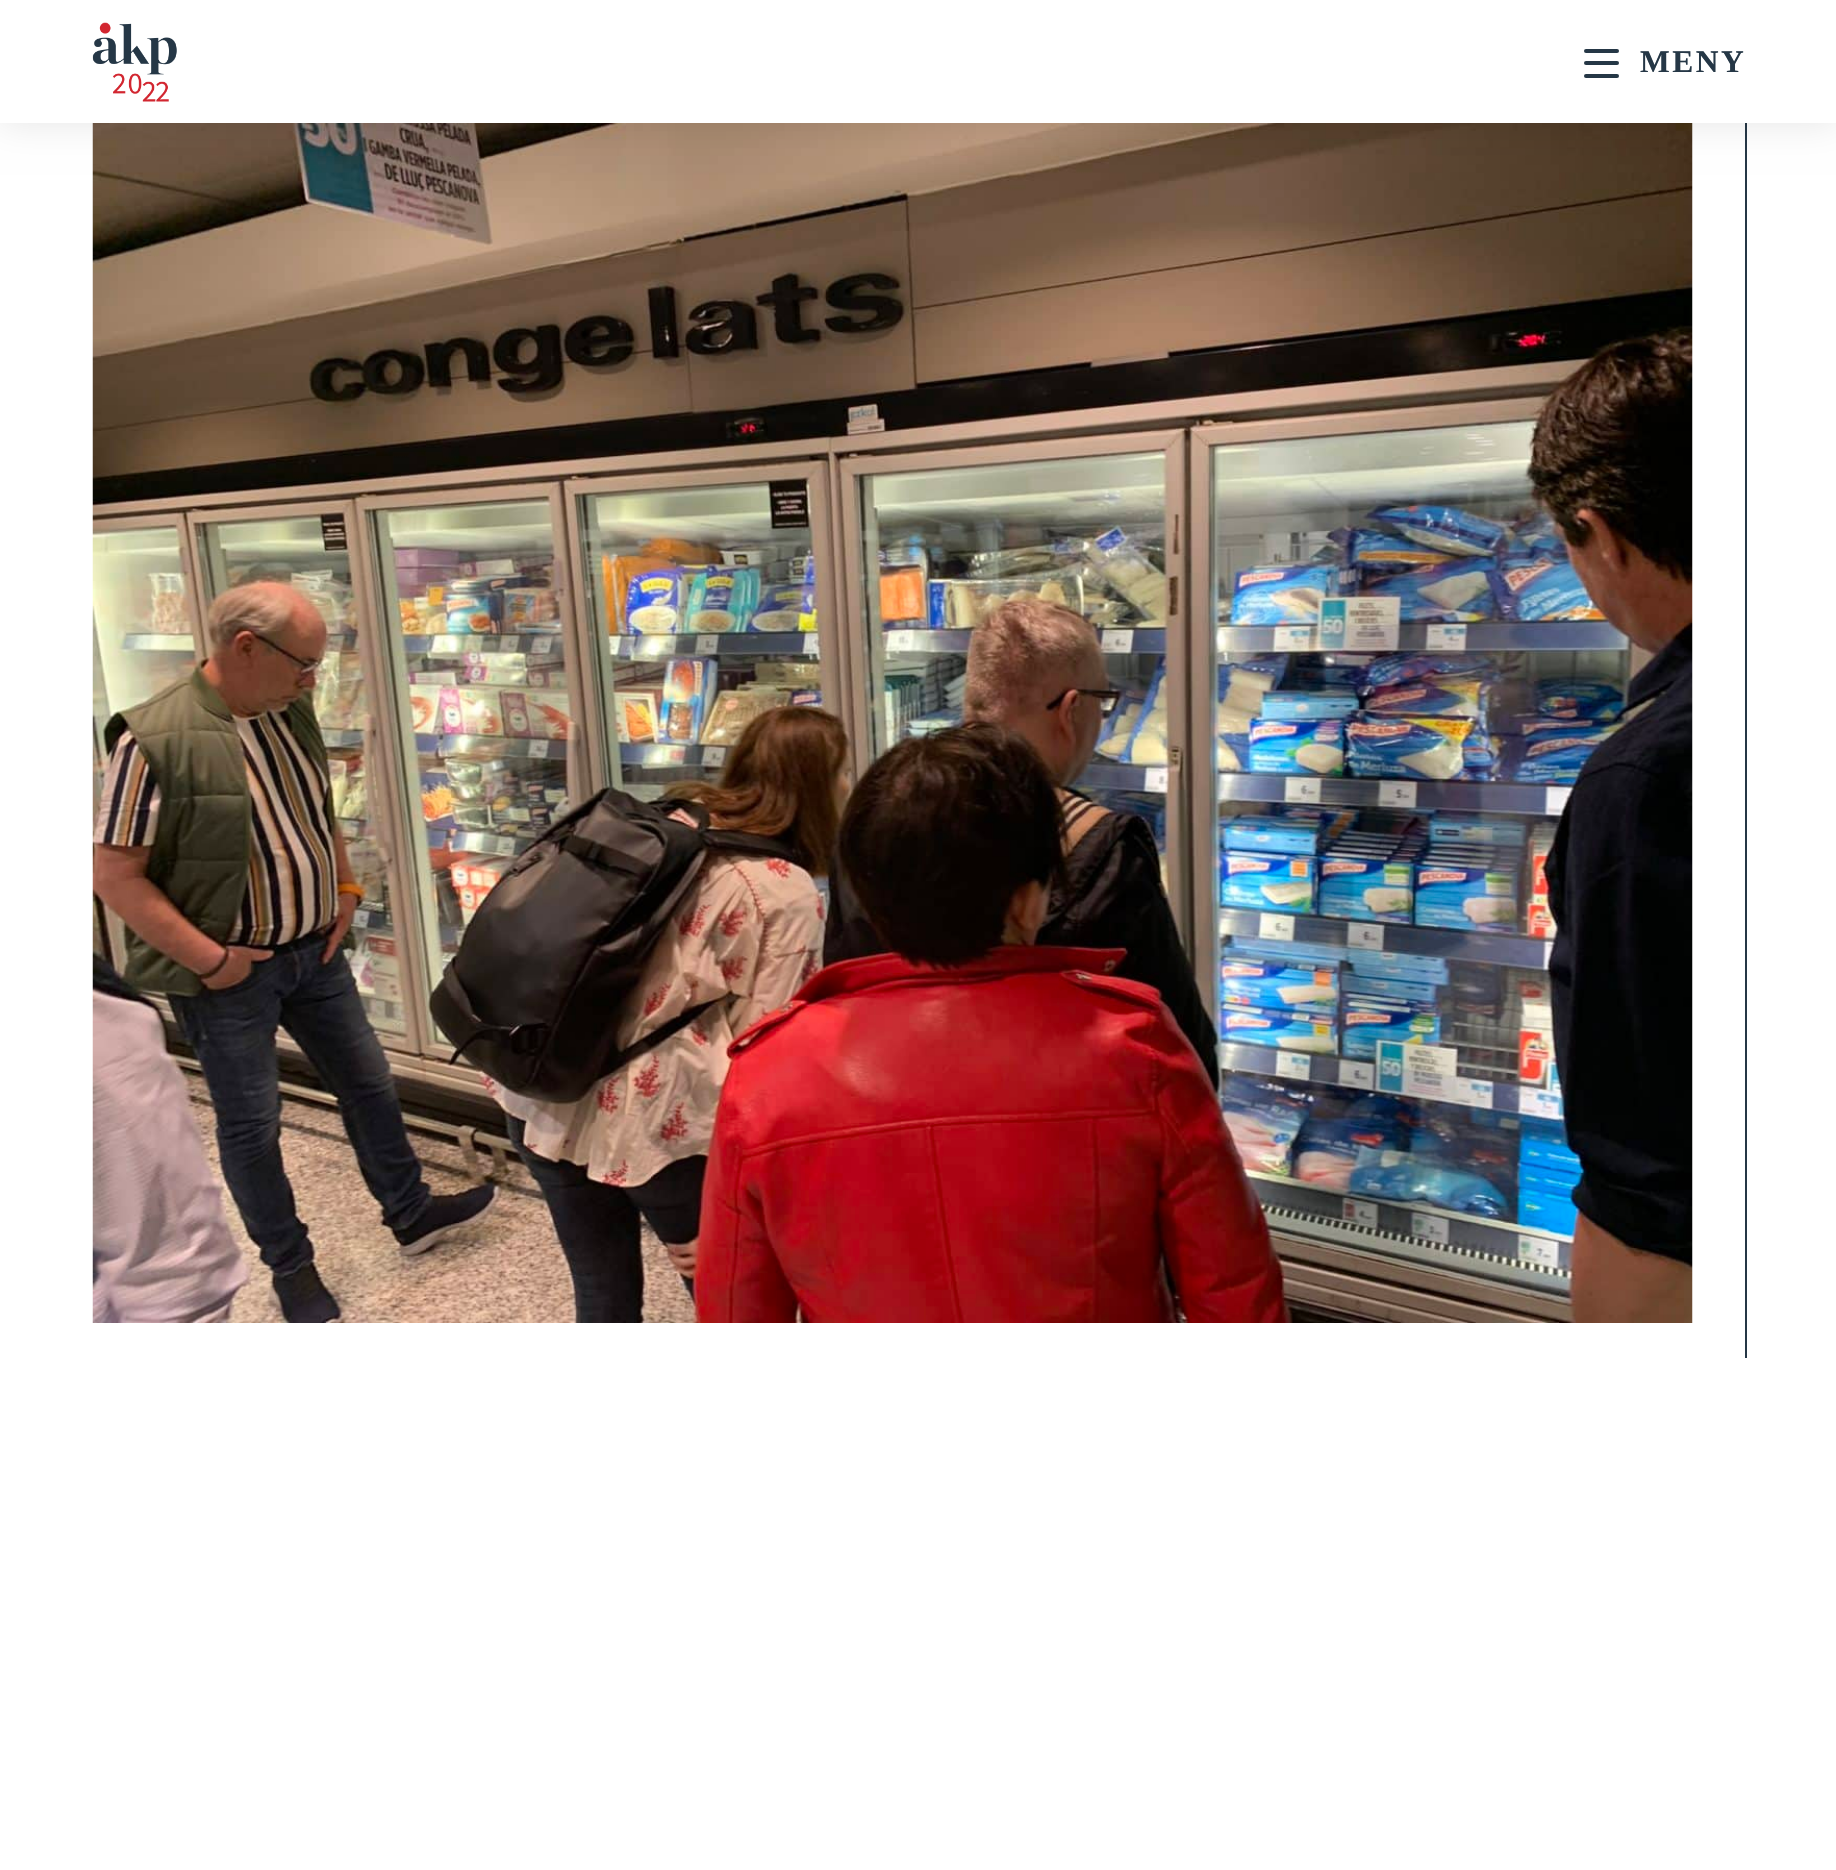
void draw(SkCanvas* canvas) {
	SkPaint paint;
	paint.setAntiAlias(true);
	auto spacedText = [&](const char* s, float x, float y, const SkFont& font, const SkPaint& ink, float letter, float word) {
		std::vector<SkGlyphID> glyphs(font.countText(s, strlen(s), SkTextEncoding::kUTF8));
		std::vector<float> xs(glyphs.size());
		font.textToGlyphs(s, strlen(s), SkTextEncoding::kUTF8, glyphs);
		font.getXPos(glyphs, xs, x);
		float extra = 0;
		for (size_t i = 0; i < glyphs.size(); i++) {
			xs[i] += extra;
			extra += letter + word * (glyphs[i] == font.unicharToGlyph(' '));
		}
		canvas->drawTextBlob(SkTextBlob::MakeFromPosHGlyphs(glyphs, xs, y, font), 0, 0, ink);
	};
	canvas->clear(0xffffffff);
	paint.setColor(0xff253746);
	canvas->drawRect(SkRect::MakeXYWH(1745, 123, 2, 1235), paint);
	canvas->drawImageRect(SkImages::DeferredFromEncodedData(SkData::MakeFromFileName("img2.png")), SkRect::MakeXYWH(92, 123, 1601, 1200), SkSamplingOptions());
	paint.setColor(0x1a000000);
	paint.setMaskFilter(SkMaskFilter::MakeBlur(kNormal_SkBlurStyle, 17.5));
	canvas->drawRect(SkRect::MakeXYWH(0, 0, 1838, 123), paint);
	paint.setMaskFilter(nullptr);
	paint.setColor(0xffffffff);
	canvas->drawRect(SkRect::MakeXYWH(0, 0, 1836, 123), paint);
	canvas->drawImageRect(SkImages::DeferredFromEncodedData(SkData::MakeFromFileName("img1.png")), SkRect::MakeXYWH(92, 22, 85, 80), SkSamplingOptions());
	paint.setColor(0xff253746);
	canvas->drawRoundRect(SkRect::MakeXYWH(1584, 61, 35, 4), 2, 2, paint);
	canvas->drawRoundRect(SkRect::MakeXYWH(1584, 49, 35, 4), 2, 2, paint);
	canvas->drawRoundRect(SkRect::MakeXYWH(1584, 74, 35, 4), 2, 2, paint);
	SkFont f1(fontMgr->matchFamilyStyle("Liberation Serif", SkFontStyle::Bold()), 31.5);
	f1.setSubpixel(true);
	spacedText("MENY", 1640, 72, f1, paint, 2.5, 0);
}
